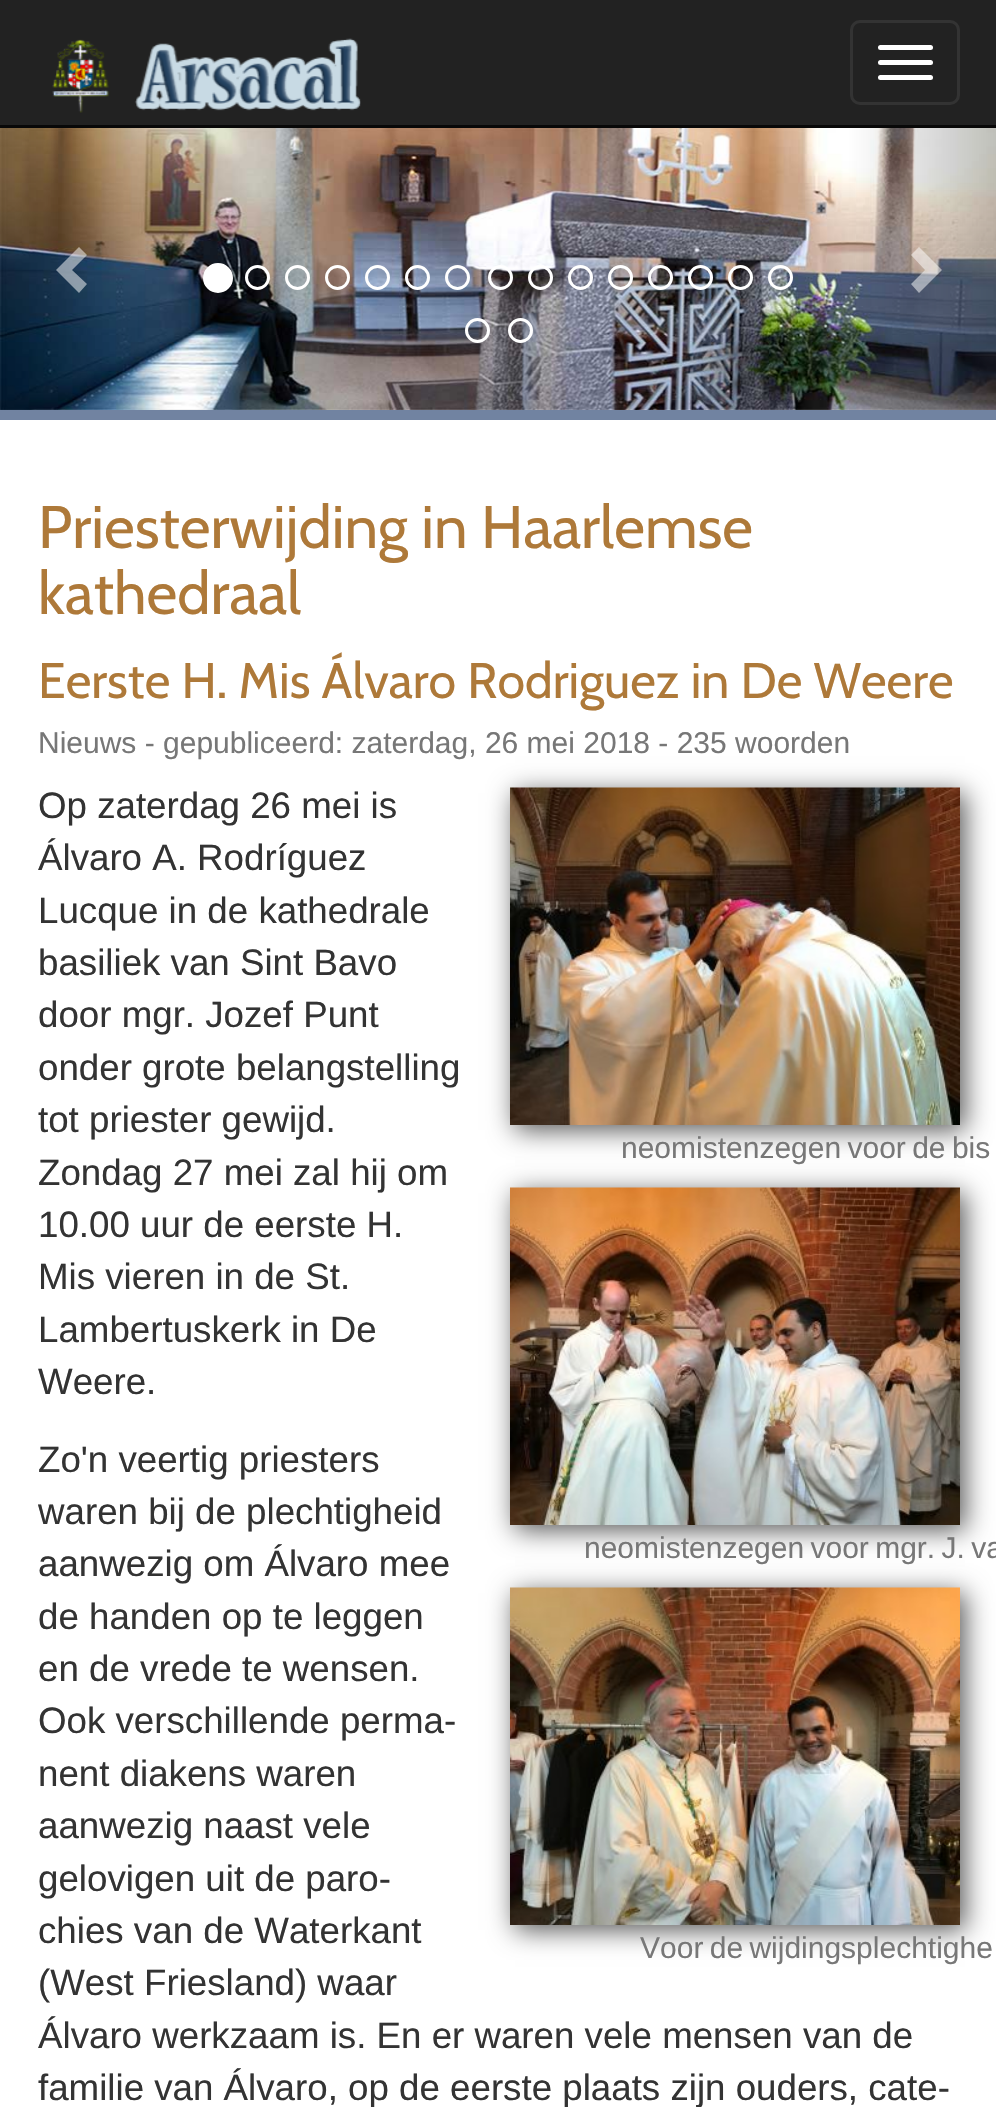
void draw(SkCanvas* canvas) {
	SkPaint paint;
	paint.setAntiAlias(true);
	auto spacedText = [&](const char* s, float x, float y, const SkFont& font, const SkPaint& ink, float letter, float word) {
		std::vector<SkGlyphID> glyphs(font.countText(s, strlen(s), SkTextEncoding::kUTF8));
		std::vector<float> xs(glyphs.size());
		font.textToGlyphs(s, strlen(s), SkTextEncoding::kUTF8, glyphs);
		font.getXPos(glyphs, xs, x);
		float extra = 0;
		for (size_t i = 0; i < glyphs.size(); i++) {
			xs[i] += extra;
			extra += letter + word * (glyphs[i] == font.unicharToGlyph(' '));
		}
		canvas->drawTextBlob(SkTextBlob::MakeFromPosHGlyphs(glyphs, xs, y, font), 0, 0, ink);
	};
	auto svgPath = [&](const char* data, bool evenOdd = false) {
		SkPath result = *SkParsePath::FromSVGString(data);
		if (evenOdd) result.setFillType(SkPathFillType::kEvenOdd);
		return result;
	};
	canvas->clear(0xffffffff);
	paint.setColor(0xff222222);
	canvas->drawRect(SkRect::MakeXYWH(0, 0, 996, 125), paint);
	paint.setColor(0xff080808);
	canvas->drawRect(SkRect::MakeXYWH(0, 125, 996, 3), paint);
	canvas->drawImageRect(SkImages::DeferredFromEncodedData(SkData::MakeFromFileName("img1.png")), SkRect::MakeXYWH(52, 38, 309, 75), SkSamplingOptions());
	paint.setStroke(true);
	paint.setStrokeWidth(3);
	paint.setColor(0xff333333);
	canvas->drawRoundRect(SkRect::MakeXYWH(851.5, 21.5, 107, 82), 8.5, 8.5, paint);
	paint.setStroke(false);
	paint.setColor(0xffffffff);
	canvas->drawRoundRect(SkRect::MakeXYWH(878, 45, 55, 5), 2.5, 2.5, paint);
	canvas->drawRoundRect(SkRect::MakeXYWH(878, 60, 55, 5), 2.5, 2.5, paint);
	canvas->drawRoundRect(SkRect::MakeXYWH(878, 75, 55, 5), 2.5, 2.5, paint);
	canvas->drawImageRect(SkImages::DeferredFromEncodedData(SkData::MakeFromFileName("img2.png")), SkRect::MakeXYWH(0, 128, 996, 282), SkSamplingOptions());
	paint.setColor(0x80ffffff);
	canvas->drawPath(svgPath("M87 255L72 270L87 284L79 293L56 270L79 247Z"), paint);
	paint.setColor(0xffffffff);
	canvas->drawCircle(218, 278, 13.5, paint);
	paint.setStroke(true);
	canvas->drawCircle(218, 278, 13.5, paint);
	canvas->drawCircle(257.5, 277.5, 11, paint);
	canvas->drawCircle(297.5, 277.5, 11, paint);
	canvas->drawCircle(337.5, 277.5, 11, paint);
	canvas->drawCircle(377.5, 277.5, 11, paint);
	canvas->drawCircle(417.5, 277.5, 11, paint);
	canvas->drawCircle(457.5, 277.5, 11, paint);
	canvas->drawCircle(500.5, 277.5, 11, paint);
	canvas->drawCircle(540.5, 277.5, 11, paint);
	canvas->drawCircle(580.5, 277.5, 11, paint);
	canvas->drawCircle(620.5, 277.5, 11, paint);
	canvas->drawCircle(660.5, 277.5, 11, paint);
	canvas->drawCircle(700.5, 277.5, 11, paint);
	canvas->drawCircle(740.5, 277.5, 11, paint);
	canvas->drawCircle(780.5, 277.5, 11, paint);
	canvas->drawCircle(477.5, 330.5, 11, paint);
	canvas->drawCircle(520.5, 330.5, 11, paint);
	paint.setStroke(false);
	paint.setColor(0x80ffffff);
	canvas->drawPath(svgPath("M942 270L919 293L911 284L925 270L911 255L919 247Z"), paint);
	paint.setColor(0xff7183a1);
	canvas->drawRect(SkRect::MakeXYWH(0, 410, 996, 10), paint);
	SkFont f1(fontMgr->matchFamilyStyle("Cabin", SkFontStyle::Normal()), 60);
	f1.setSubpixel(true);
	paint.setColor(0xffae7939);
	canvas->drawString("Priesterwijding in Haarlemse", 38, 548, f1, paint);
	canvas->drawString("kathedraal", 38, 614, f1, paint);
	SkFont f2(fontMgr->matchFamilyStyle("Cabin", SkFontStyle::Normal()), 50);
	f2.setSubpixel(true);
	canvas->drawString("Eerste H. Mis Álvaro Rodriguez in De Weere", 38, 698, f2, paint);
	paint.setColor(0xff555555);
	paint.setMaskFilter(SkMaskFilter::MakeBlur(kNormal_SkBlurStyle, 12.5));
	canvas->drawRect(SkRect::MakeXYWH(515, 793, 450, 337), paint);
	paint.setMaskFilter(nullptr);
	SkFont f3(fontMgr->matchFamilyStyle("Liberation Sans", SkFontStyle::Normal()), 30);
	f3.setSubpixel(true);
	paint.setColor(0xff777777);
	canvas->drawString("Nieuws - gepubliceerd: zaterdag, 26 mei 2018 - 235 woorden", 38, 753, f3, paint);
	SkFont f4(fontMgr->matchFamilyStyle("Liberation Sans", SkFontStyle::Normal()), 36.7);
	f4.setSubpixel(true);
	paint.setColor(0xff333333);
	canvas->drawString("Op zaterdag 26 mei is", 38, 818, f4, paint);
	canvas->drawString("Álvaro A. Rodríguez", 38, 870, f4, paint);
	canvas->drawString("Lucque in de kathedrale", 38, 923, f4, paint);
	canvas->drawString("basiliek van Sint Bavo", 38, 975, f4, paint);
	canvas->drawString("door mgr. Jozef Punt", 38, 1027, f4, paint);
	canvas->drawString("onder grote belangstelling", 38, 1080, f4, paint);
	canvas->drawString("tot priester gewijd.", 38, 1132, f4, paint);
	canvas->drawString("Zondag 27 mei zal hij om", 38, 1185, f4, paint);
	canvas->drawString("10.00 uur de eerste H.", 38, 1237, f4, paint);
	canvas->drawString("Mis vieren in de St.", 38, 1289, f4, paint);
	canvas->drawString("Lambertuskerk in De", 38, 1342, f4, paint);
	canvas->drawString("Weere.", 38, 1394, f4, paint);
	canvas->drawImageRect(SkImages::DeferredFromEncodedData(SkData::MakeFromFileName("img3.png")), SkRect::MakeXYWH(510, 787, 450, 338), SkSamplingOptions());
	paint.setColor(0xff555555);
	paint.setMaskFilter(SkMaskFilter::MakeBlur(kNormal_SkBlurStyle, 12.5));
	canvas->drawRect(SkRect::MakeXYWH(515, 1193, 450, 337), paint);
	paint.setMaskFilter(nullptr);
	paint.setColor(0xff777777);
	spacedText("neomistenzegen voor de bis", 621, 1158, f3, paint, 0, -2);
	canvas->drawImageRect(SkImages::DeferredFromEncodedData(SkData::MakeFromFileName("img4.png")), SkRect::MakeXYWH(510, 1187, 450, 338), SkSamplingOptions());
	paint.setColor(0xff555555);
	paint.setMaskFilter(SkMaskFilter::MakeBlur(kNormal_SkBlurStyle, 12.5));
	canvas->drawRect(SkRect::MakeXYWH(515, 1593, 450, 337), paint);
	paint.setMaskFilter(nullptr);
	paint.setColor(0xff777777);
	spacedText("neomistenzegen voor mgr. J. va", 584, 1558, f3, paint, 0, -2);
	canvas->drawImageRect(SkImages::DeferredFromEncodedData(SkData::MakeFromFileName("img5.png")), SkRect::MakeXYWH(510, 1587, 450, 338), SkSamplingOptions());
	spacedText("Voor de wijdingsplechtighe", 640, 1958, f3, paint, 0, -2);
	paint.setColor(0xff333333);
	canvas->drawString("Zo'n veertig priesters", 38, 1472, f4, paint);
	canvas->drawString("waren bij de plechtigheid", 38, 1524, f4, paint);
	canvas->drawString("aanwezig om Álvaro mee", 38, 1576, f4, paint);
	canvas->drawString("de handen op te leggen", 38, 1629, f4, paint);
	canvas->drawString("en de vrede te wensen.", 38, 1681, f4, paint);
	canvas->drawString("Ook verschillende perma-", 38, 1733, f4, paint);
	canvas->drawString("nent diakens waren", 38, 1786, f4, paint);
	canvas->drawString("aanwezig naast vele", 38, 1838, f4, paint);
	canvas->drawString("gelovigen uit de paro-", 38, 1891, f4, paint);
	canvas->drawString("chies van de Waterkant", 38, 1943, f4, paint);
	canvas->drawString("(West Friesland) waar", 38, 1995, f4, paint);
	canvas->drawString("Álvaro werkzaam is. En er waren vele mensen van de", 38, 2048, f4, paint);
	canvas->drawString("familie van Álvaro, op de eerste plaats zijn ouders, cate-", 38, 2100, f4, paint);
}
